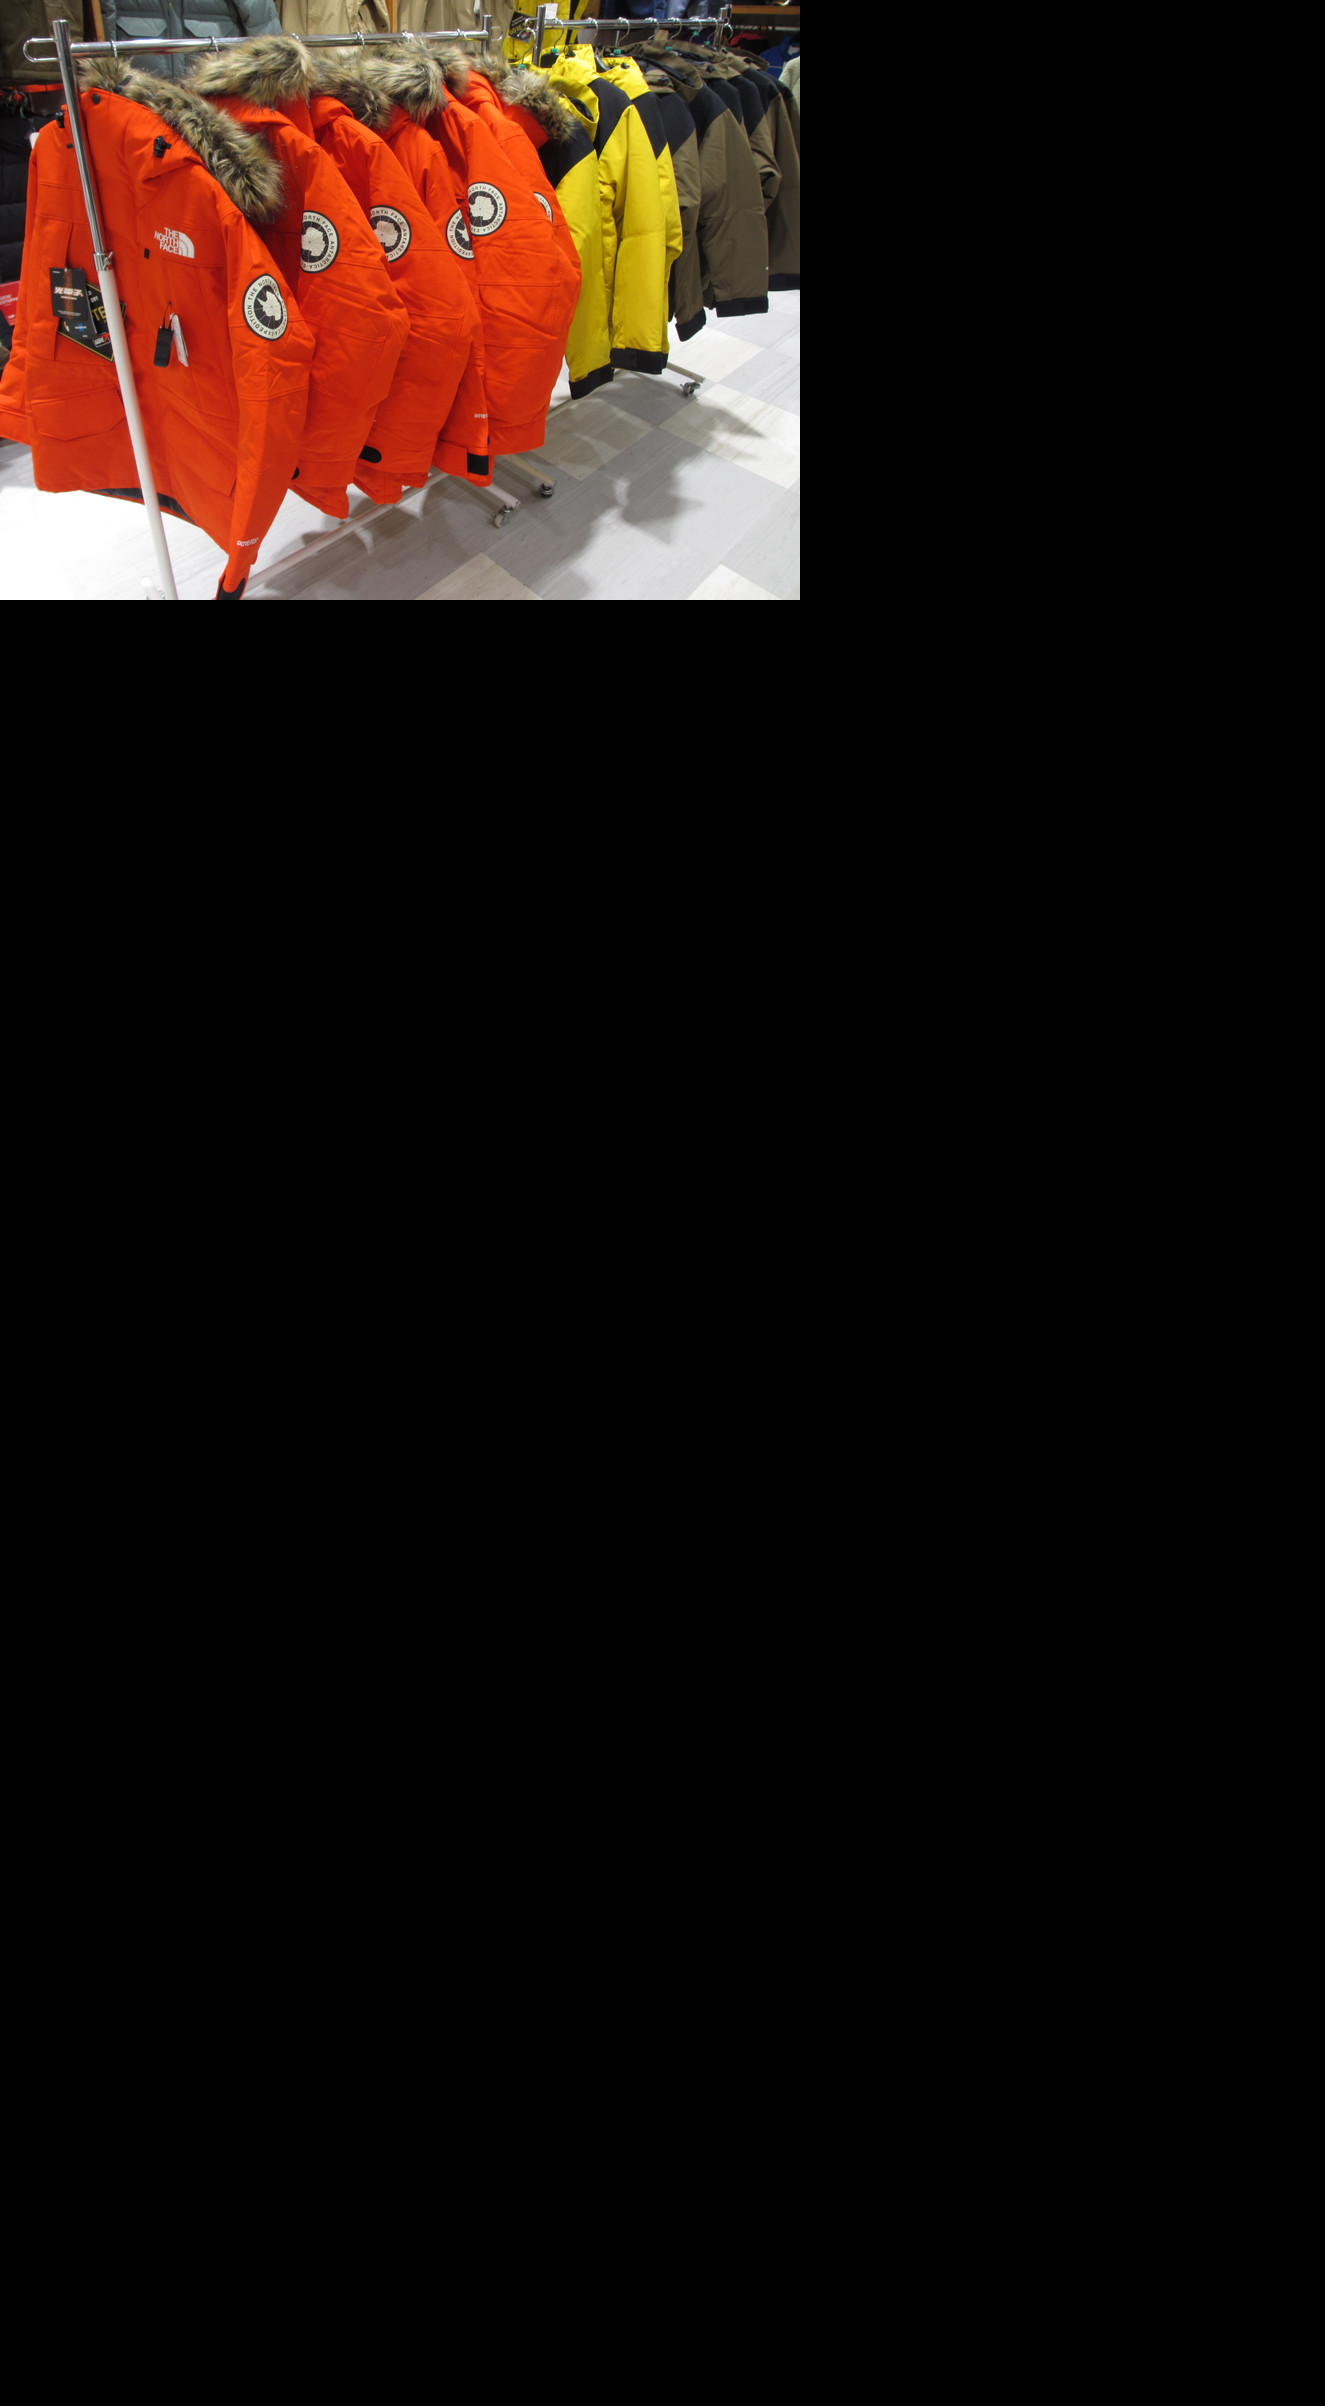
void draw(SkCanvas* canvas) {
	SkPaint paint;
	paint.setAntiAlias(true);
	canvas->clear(0xff000000);
	canvas->drawImageRect(SkImages::DeferredFromEncodedData(SkData::MakeFromFileName("img1.png")), SkRect::MakeXYWH(0, 0, 800, 600), SkSamplingOptions());
}
